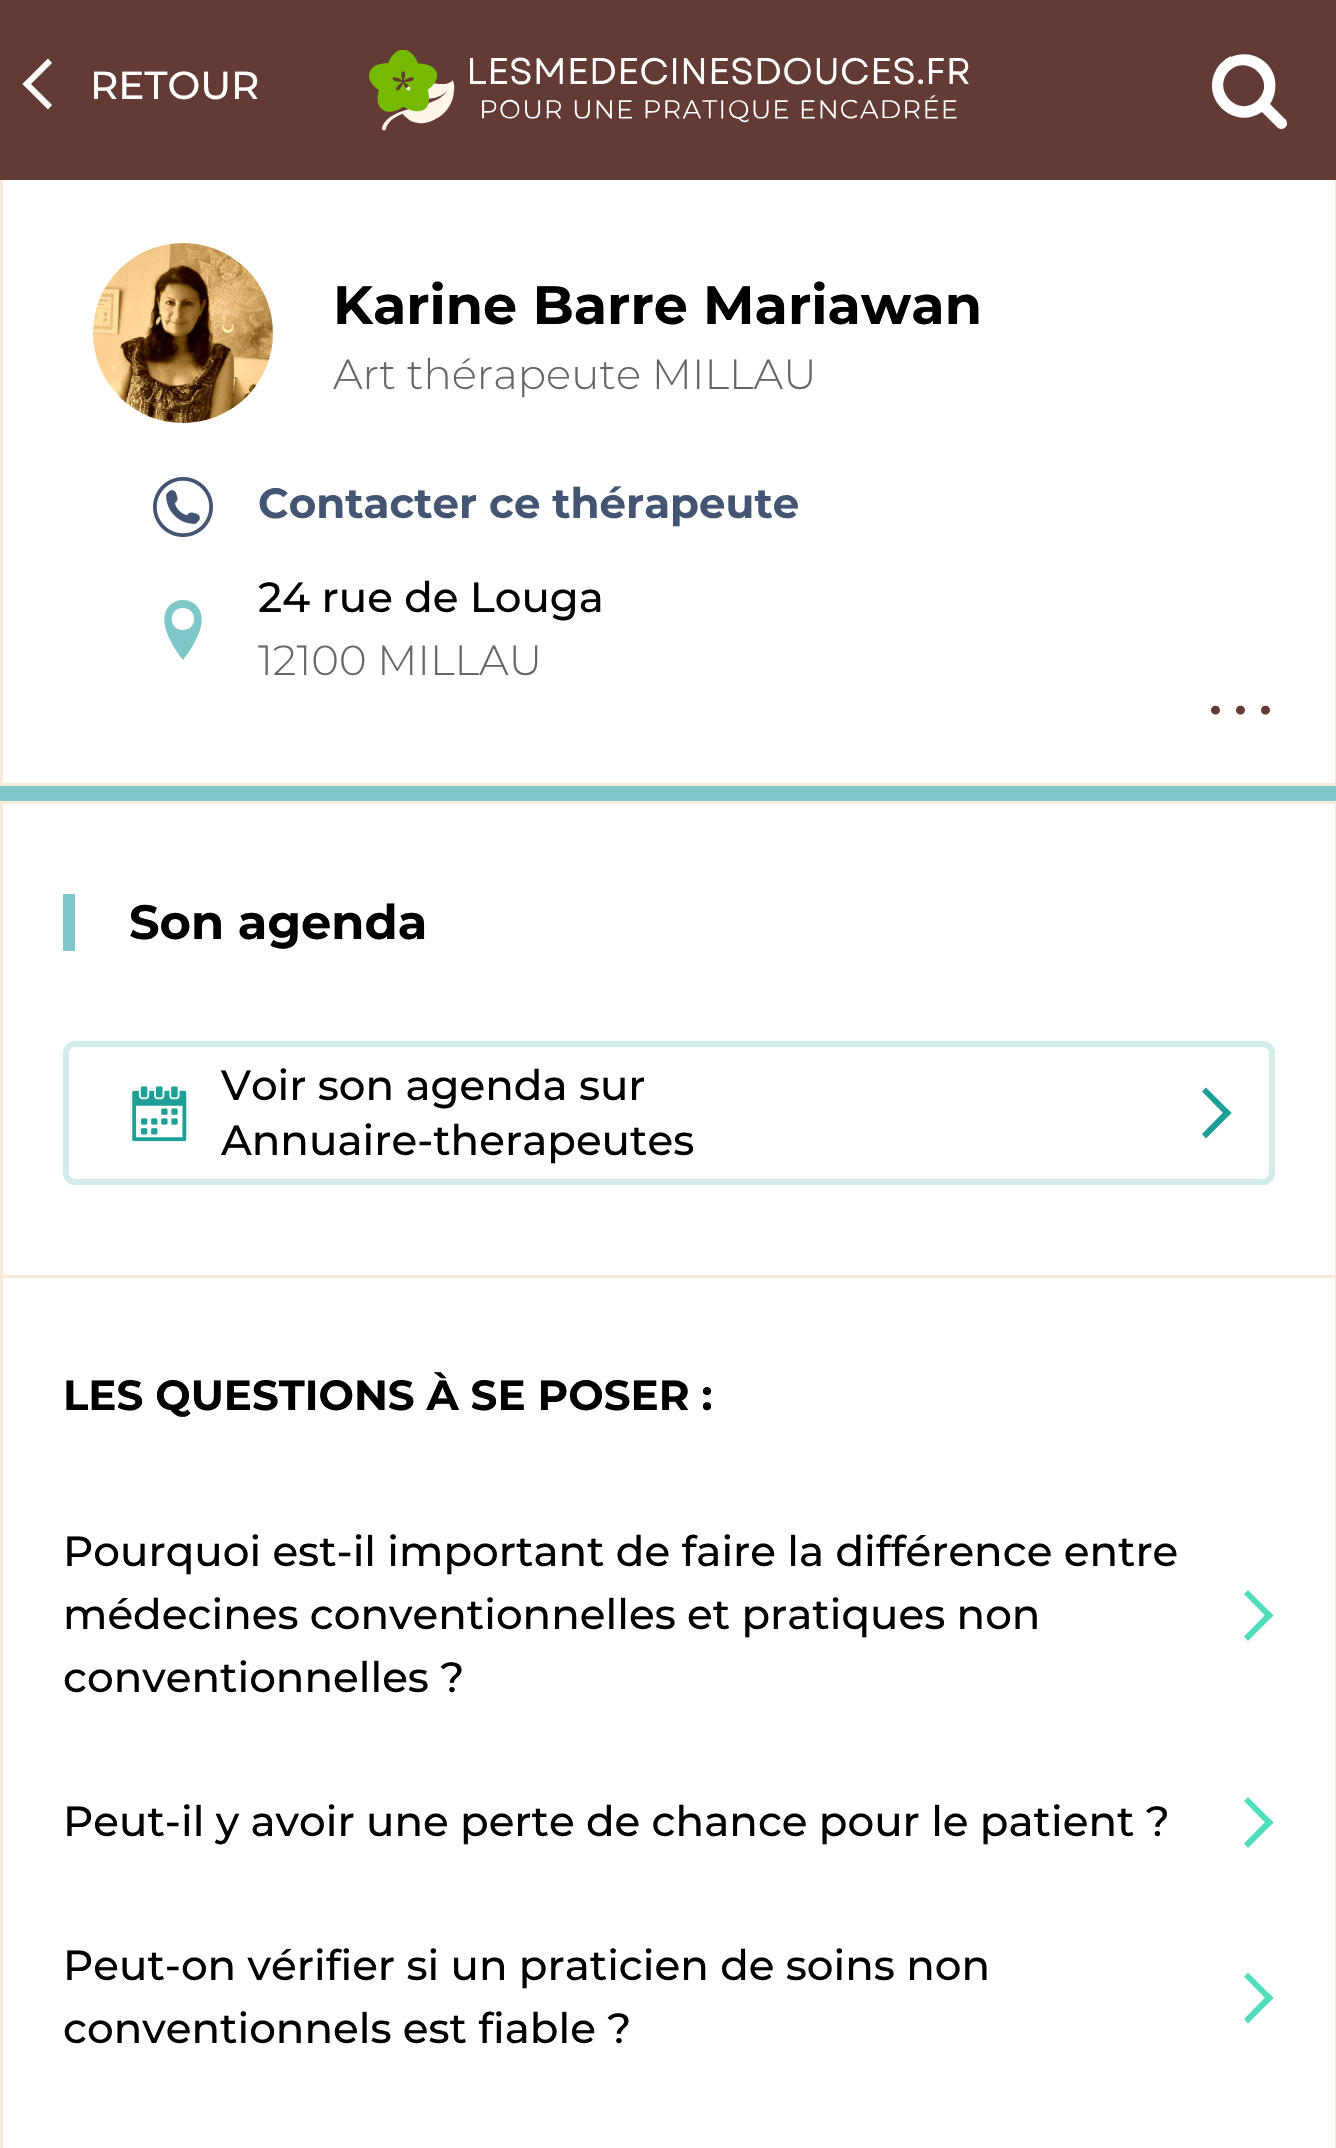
void draw(SkCanvas* canvas) {
	SkPaint paint;
	paint.setAntiAlias(true);
	auto svgPath = [&](const char* data, bool evenOdd = false) {
		SkPath result = *SkParsePath::FromSVGString(data);
		if (evenOdd) result.setFillType(SkPathFillType::kEvenOdd);
		return result;
	};
	canvas->clear(0xffffffff);
	paint.setColor(0xff643a34);
	canvas->drawRect(SkRect::MakeXYWH(0, 0, 1336, 180), paint);
	canvas->drawImageRect(SkImages::DeferredFromEncodedData(SkData::MakeFromFileName("img1.png")), SkRect::MakeXYWH(369, 50, 600, 81), SkSamplingOptions());
	paint.setColor(0xffffffff);
	canvas->drawPath(svgPath("M1285 119L1270 104C1276 95 1277 83 1273 73C1266 57 1247 50 1231 57V56C1225 59 1219 64 1216 70C1200 99 1234 131 1262 112L1278 128C1281 130 1285 129 1287 125C1287 124 1287 122 1286 120ZM1258 100C1239 119 1211 90 1229 71C1248 53 1277 81 1258 100Z"), paint);
	canvas->drawPath(svgPath("M22.5 84L48 58.5L52 63L27 88Z"), paint);
	canvas->drawPath(svgPath("M22.5 84L27 80L52 105L48 109.5Z"), paint);
	SkFont f1(fontMgr->matchFamilyStyle("Montserrat", SkFontStyle(500, SkFontStyle::kNormal_Width, SkFontStyle::kUpright_Slant)), 39);
	f1.setSubpixel(true);
	canvas->drawString("RETOUR", 90, 99, f1, paint);
	paint.setColor(0xfffaeadb);
	canvas->drawRect(SkRect::MakeXYWH(1335, 180, 1, 606), paint);
	canvas->drawRect(SkRect::MakeXYWH(0, 783, 1336, 3), paint);
	canvas->drawRect(SkRect::MakeXYWH(0, 180, 3, 606), paint);
	canvas->drawImageRect(SkImages::DeferredFromEncodedData(SkData::MakeFromFileName("img2.png")), SkRect::MakeXYWH(93, 243, 180, 180), SkSamplingOptions());
	SkFont f2(fontMgr->matchFamilyStyle("Montserrat", SkFontStyle::Bold()), 54);
	f2.setSubpixel(true);
	paint.setColor(0xff000000);
	canvas->drawString("Karine Barre Mariawan", 333, 324, f2, paint);
	SkFont f3(fontMgr->matchFamilyStyle("Montserrat", SkFontStyle(300, SkFontStyle::kNormal_Width, SkFontStyle::kUpright_Slant)), 42);
	f3.setSubpixel(true);
	paint.setColor(0xff666666);
	canvas->drawString("Art thérapeute MILLAU", 333, 389, f3, paint);
	canvas->drawImageRect(SkImages::DeferredFromEncodedData(SkData::MakeFromFileName("img3.png")), SkRect::MakeXYWH(153, 477, 60, 60), SkSamplingOptions());
	SkFont f4(fontMgr->matchFamilyStyle("Montserrat", SkFontStyle::Bold()), 42);
	f4.setSubpixel(true);
	paint.setColor(0xff445473);
	canvas->drawString("Contacter ce thérapeute", 258, 518, f4, paint);
	paint.setColor(0xff7ec6c7);
	canvas->drawPath(svgPath("M183 600C178 600 173 602 170 605C155 620 173 647 183 660C193 647 211 620 196 605C193 602 188 600 183 600ZM183 630C168 630 168 608 183 608C198 608 198 630 183 630Z"), paint);
	SkFont f5(fontMgr->matchFamilyStyle("Montserrat", SkFontStyle(500, SkFontStyle::kNormal_Width, SkFontStyle::kUpright_Slant)), 42);
	f5.setSubpixel(true);
	paint.setColor(0xff000000);
	canvas->drawString("24 rue de Louga", 258, 612, f5, paint);
	paint.setColor(0xff666666);
	canvas->drawString("12100 MILLAU", 258, 675, f3, paint);
	SkFont f6(fontMgr->matchFamilyStyle("Liberation Serif", SkFontStyle::Normal()), 75);
	f6.setSubpixel(true);
	paint.setColor(0xff643a34);
	canvas->drawString("···", 1203, 735, f6, paint);
	paint.setColor(0xff7ec6c7);
	canvas->drawRect(SkRect::MakeXYWH(0, 786, 1336, 15), paint);
	paint.setStroke(true);
	paint.setStrokeWidth(3);
	paint.setColor(0xfffaeadb);
	canvas->drawRect(SkRect::MakeXYWH(1.5, 802.5, 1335, 474), paint);
	paint.setStroke(false);
	paint.setColor(0xff7ec6c7);
	canvas->drawRect(SkRect::MakeXYWH(63, 894, 12, 57), paint);
	SkFont f7(fontMgr->matchFamilyStyle("Montserrat", SkFontStyle::Bold()), 48);
	f7.setSubpixel(true);
	paint.setColor(0xff000000);
	canvas->drawString("Son agenda", 129, 939, f7, paint);
	paint.setStroke(true);
	paint.setStrokeWidth(6);
	paint.setColor(0xffd2ecea);
	canvas->drawRoundRect(SkRect::MakeXYWH(66, 1044, 1206, 138), 9, 9, paint);
	canvas->drawImageRect(SkImages::DeferredFromEncodedData(SkData::MakeFromFileName("img4.png")), SkRect::MakeXYWH(132, 1086, 55, 56), SkSamplingOptions());
	paint.setStroke(false);
	paint.setColor(0xff000000);
	canvas->drawString("Voir son agenda sur", 221, 1100, f5, paint);
	canvas->drawString("Annuaire-therapeutes", 221, 1155, f5, paint);
	paint.setColor(0xff1da097);
	canvas->drawPath(svgPath("M1206 1087.5L1231.5 1113L1227 1117L1202 1091.5Z"), paint);
	canvas->drawPath(svgPath("M1227 1108.5L1231.5 1113L1206 1138.5L1202 1134Z"), paint);
	paint.setStroke(true);
	paint.setStrokeWidth(3);
	paint.setColor(0xfffaeadb);
	canvas->drawRect(SkRect::MakeXYWH(1.5, 1276.5, 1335, 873), paint);
	paint.setStroke(false);
	paint.setColor(0xff000000);
	canvas->drawString("LES QUESTIONS À SE POSER :", 63, 1410, f4, paint);
	canvas->drawString("Pourquoi est-il important de faire la différence entre", 63, 1566, f5, paint);
	canvas->drawString("médecines conventionnelles et pratiques non", 63, 1629, f5, paint);
	paint.setColor(0xff50ddbc);
	canvas->drawPath(svgPath("M1248 1590L1273.5 1615.5L1269 1619.5L1244 1594Z"), paint);
	canvas->drawPath(svgPath("M1269 1611L1273.5 1615.5L1248 1641L1244 1636.5Z"), paint);
	paint.setColor(0xff000000);
	canvas->drawString("conventionnelles ?", 63, 1692, f5, paint);
	canvas->drawString("Peut-il y avoir une perte de chance pour le patient ?", 63, 1836, f5, paint);
	paint.setColor(0xff50ddbc);
	canvas->drawPath(svgPath("M1248 1797L1273.5 1822.5L1269 1826.5L1244 1801Z"), paint);
	canvas->drawPath(svgPath("M1269 1818L1273.5 1822.5L1248 1848L1244 1843.5Z"), paint);
	paint.setColor(0xff000000);
	canvas->drawString("Peut-on vérifier si un praticien de soins non", 63, 1980, f5, paint);
	paint.setColor(0xff50ddbc);
	canvas->drawPath(svgPath("M1248 1972.5L1273.5 1998L1269 2002L1244 1976.5Z"), paint);
	canvas->drawPath(svgPath("M1269 1993.5L1273.5 1998L1248 2023.5L1244 2019Z"), paint);
	paint.setColor(0xff000000);
	canvas->drawString("conventionnels est fiable ?", 63, 2043, f5, paint);
}
